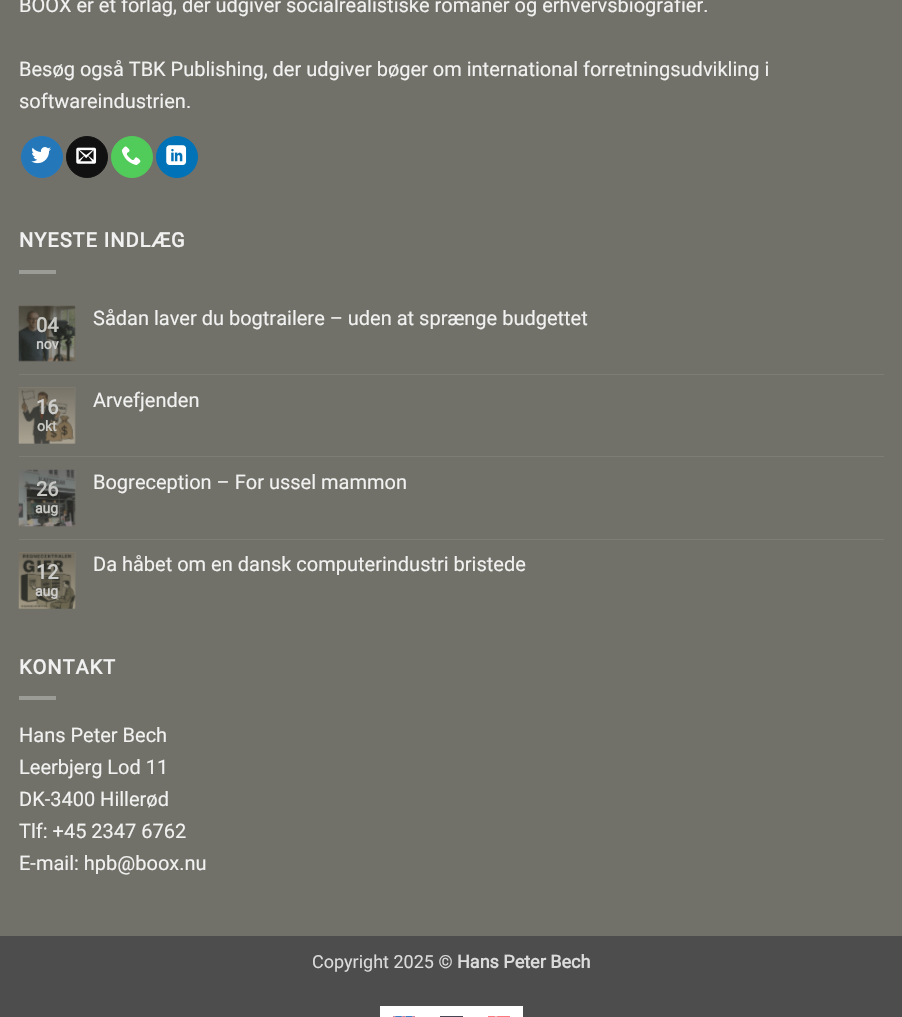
void draw(SkCanvas* canvas) {
	SkPaint paint;
	paint.setAntiAlias(true);
	auto spacedText = [&](const char* s, float x, float y, const SkFont& font, const SkPaint& ink, float letter, float word) {
		std::vector<SkGlyphID> glyphs(font.countText(s, strlen(s), SkTextEncoding::kUTF8));
		std::vector<float> xs(glyphs.size());
		font.textToGlyphs(s, strlen(s), SkTextEncoding::kUTF8, glyphs);
		font.getXPos(glyphs, xs, x);
		float extra = 0;
		for (size_t i = 0; i < glyphs.size(); i++) {
			xs[i] += extra;
			extra += letter + word * (glyphs[i] == font.unicharToGlyph(' '));
		}
		canvas->drawTextBlob(SkTextBlob::MakeFromPosHGlyphs(glyphs, xs, y, font), 0, 0, ink);
	};
	canvas->clear(0xff4d4d4d);
	paint.setColor(0xff727169);
	canvas->drawRect(SkRect::MakeXYWH(0, 0, 902, 936), paint);
	SkFont f1(fontMgr->matchFamilyStyle("Roboto", SkFontStyle::Normal()), 20);
	f1.setSubpixel(true);
	paint.setColor(0xfff1f1f1);
	canvas->drawString("BOOX er et forlag, der udgiver socialrealistiske romaner og erhvervsbiografier.", 19, 12, f1, paint);
	canvas->drawString("Besøg også TBK Publishing, der udgiver bøger om international forretningsudvikling i", 19, 76, f1, paint);
	canvas->drawString("softwareindustrien.", 19, 108, f1, paint);
	paint.setColor(0xff2478ba);
	canvas->drawCircle(42, 157, 20.5, paint);
	paint.setStroke(true);
	paint.setStrokeWidth(1);
	canvas->drawCircle(42, 157, 20.5, paint);
	canvas->drawImageRect(SkImages::DeferredFromEncodedData(SkData::MakeFromFileName("img1.png")), SkRect::MakeXYWH(31, 147, 20, 17), SkSamplingOptions());
	paint.setStroke(false);
	paint.setColor(0xff111111);
	canvas->drawCircle(87, 157, 20.5, paint);
	paint.setStroke(true);
	canvas->drawCircle(87, 157, 20.5, paint);
	canvas->drawImageRect(SkImages::DeferredFromEncodedData(SkData::MakeFromFileName("img2.png")), SkRect::MakeXYWH(76, 147, 21, 17), SkSamplingOptions());
	paint.setStroke(false);
	paint.setColor(0xff51cb5a);
	canvas->drawCircle(132, 157, 20.5, paint);
	paint.setStroke(true);
	canvas->drawCircle(132, 157, 20.5, paint);
	canvas->drawImageRect(SkImages::DeferredFromEncodedData(SkData::MakeFromFileName("img3.png")), SkRect::MakeXYWH(121, 146, 20, 19), SkSamplingOptions());
	paint.setStroke(false);
	paint.setColor(0xff0072b7);
	canvas->drawCircle(177, 157, 20.5, paint);
	paint.setStroke(true);
	canvas->drawCircle(177, 157, 20.5, paint);
	canvas->drawImageRect(SkImages::DeferredFromEncodedData(SkData::MakeFromFileName("img4.png")), SkRect::MakeXYWH(166, 145, 21, 20), SkSamplingOptions());
	SkFont f2(fontMgr->matchFamilyStyle("Roboto", SkFontStyle::Bold()), 20);
	f2.setSubpixel(true);
	paint.setStroke(false);
	paint.setColor(0xfff1f1f1);
	spacedText("NYESTE INDLÆG", 19, 247, f2, paint, 1, 0);
	paint.setColor(0xff9c9c96);
	canvas->drawRect(SkRect::MakeXYWH(19, 270, 37, 4), paint);
	canvas->drawImageRect(SkImages::DeferredFromEncodedData(SkData::MakeFromFileName("img5.png")), SkRect::MakeXYWH(18, 305, 58, 57), SkSamplingOptions());
	paint.setColor(0xffc7c7c4);
	canvas->drawString("04", 36, 332, f2, paint);
	SkFont f3(fontMgr->matchFamilyStyle("Roboto", SkFontStyle::Bold()), 14);
	f3.setSubpixel(true);
	paint.setColor(0xffcccccb);
	canvas->drawString("nov", 36, 349, f3, paint);
	paint.setColor(0xfff1f1f1);
	canvas->drawString("Sådan laver du bogtrailere – uden at sprænge budgettet", 93, 325, f1, paint);
	paint.setColor(0xff7d7c75);
	canvas->drawRect(SkRect::MakeXYWH(19, 374, 865, 1), paint);
	canvas->drawImageRect(SkImages::DeferredFromEncodedData(SkData::MakeFromFileName("img6.png")), SkRect::MakeXYWH(18, 387, 58, 57), SkSamplingOptions());
	paint.setColor(0xffcccccb);
	canvas->drawString("16", 36, 414, f2, paint);
	paint.setColor(0xffc7c7c4);
	canvas->drawString("okt", 37, 431, f3, paint);
	paint.setColor(0xfff1f1f1);
	canvas->drawString("Arvefjenden", 93, 407, f1, paint);
	paint.setColor(0xff7d7c75);
	canvas->drawRect(SkRect::MakeXYWH(19, 456, 865, 1), paint);
	canvas->drawImageRect(SkImages::DeferredFromEncodedData(SkData::MakeFromFileName("img7.png")), SkRect::MakeXYWH(18, 469, 58, 58), SkSamplingOptions());
	paint.setColor(0xffc7c7c4);
	canvas->drawString("26", 36, 496, f2, paint);
	canvas->drawString("aug", 35, 513, f3, paint);
	paint.setColor(0xfff1f1f1);
	canvas->drawString("Bogreception – For ussel mammon", 93, 489, f1, paint);
	paint.setColor(0xff7d7c75);
	canvas->drawRect(SkRect::MakeXYWH(19, 539, 865, 1), paint);
	canvas->drawImageRect(SkImages::DeferredFromEncodedData(SkData::MakeFromFileName("img8.png")), SkRect::MakeXYWH(18, 552, 58, 57), SkSamplingOptions());
	paint.setColor(0xffcccccb);
	canvas->drawString("12", 36, 579, f2, paint);
	canvas->drawString("aug", 35, 596, f3, paint);
	paint.setColor(0xfff1f1f1);
	canvas->drawString("Da håbet om en dansk computerindustri bristede", 93, 571, f1, paint);
	spacedText("KONTAKT", 19, 674, f2, paint, 1, 0);
	paint.setColor(0xff9c9c96);
	canvas->drawRect(SkRect::MakeXYWH(19, 696, 37, 4), paint);
	paint.setColor(0xfff1f1f1);
	canvas->drawString("Hans Peter Bech", 19, 742, f1, paint);
	canvas->drawString("Leerbjerg Lod 11", 19, 774, f1, paint);
	canvas->drawString("DK-3400 Hillerød", 19, 806, f1, paint);
	canvas->drawString("Tlf: +45 2347 6762", 19, 838, f1, paint);
	canvas->drawString("E-mail: hpb@boox.nu", 19, 870, f1, paint);
	SkFont f4(fontMgr->matchFamilyStyle("Roboto", SkFontStyle::Normal()), 18);
	f4.setSubpixel(true);
	paint.setColor(0xffdbdbdb);
	canvas->drawString("Copyright 2025 ©", 312, 968, f4, paint);
	SkFont f5(fontMgr->matchFamilyStyle("Roboto", SkFontStyle::Bold()), 18);
	f5.setSubpixel(true);
	canvas->drawString("Hans Peter Bech", 457, 968, f5, paint);
	paint.setColor(0xffffffff);
	canvas->drawRect(SkRect::MakeXYWH(380, 1006, 143, 11), paint);
	canvas->drawImageRect(SkImages::DeferredFromEncodedData(SkData::MakeFromFileName("img9.png")), SkRect::MakeXYWH(393, 1016, 22, 1), SkSamplingOptions());
	paint.setColor(0xff464655);
	canvas->drawRect(SkRect::MakeXYWH(440, 1016, 23, 1), paint);
	canvas->drawImageRect(SkImages::DeferredFromEncodedData(SkData::MakeFromFileName("img10.png")), SkRect::MakeXYWH(488, 1016, 22, 1), SkSamplingOptions());
}
